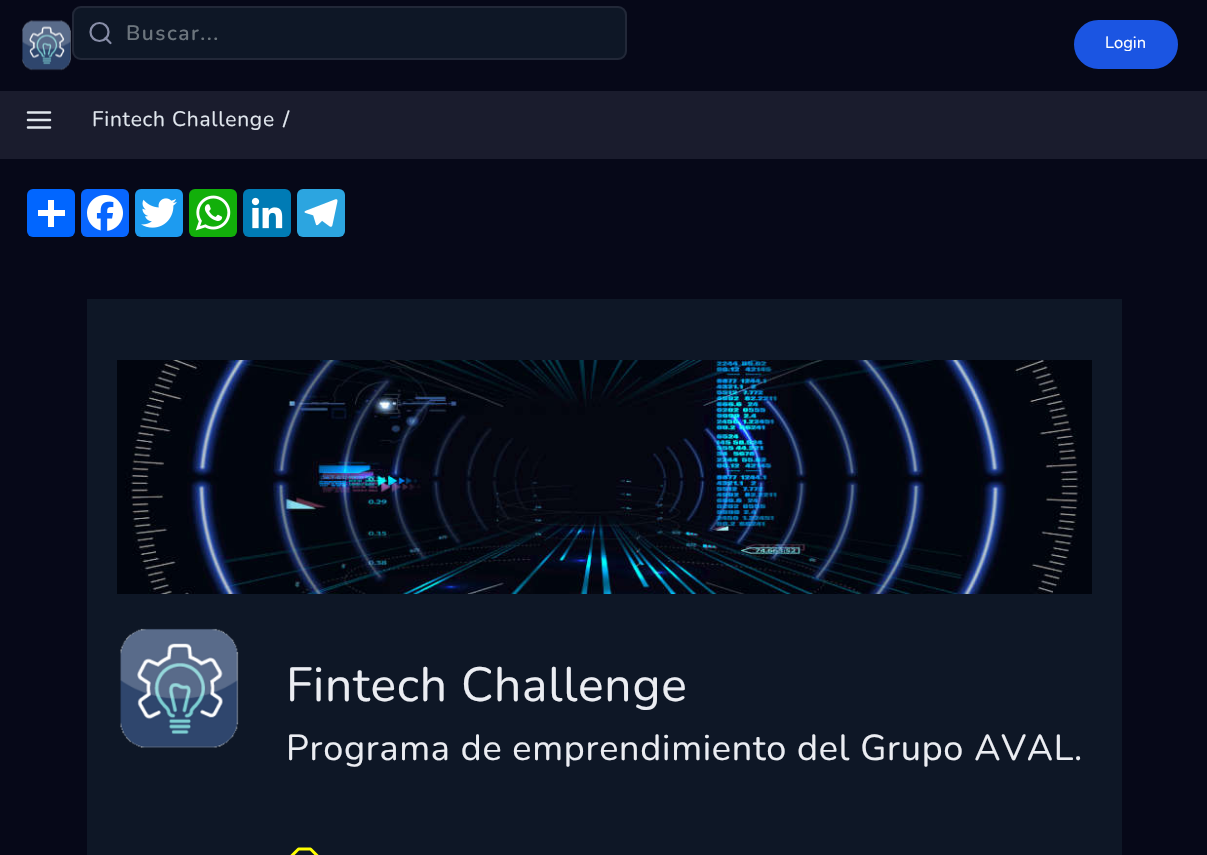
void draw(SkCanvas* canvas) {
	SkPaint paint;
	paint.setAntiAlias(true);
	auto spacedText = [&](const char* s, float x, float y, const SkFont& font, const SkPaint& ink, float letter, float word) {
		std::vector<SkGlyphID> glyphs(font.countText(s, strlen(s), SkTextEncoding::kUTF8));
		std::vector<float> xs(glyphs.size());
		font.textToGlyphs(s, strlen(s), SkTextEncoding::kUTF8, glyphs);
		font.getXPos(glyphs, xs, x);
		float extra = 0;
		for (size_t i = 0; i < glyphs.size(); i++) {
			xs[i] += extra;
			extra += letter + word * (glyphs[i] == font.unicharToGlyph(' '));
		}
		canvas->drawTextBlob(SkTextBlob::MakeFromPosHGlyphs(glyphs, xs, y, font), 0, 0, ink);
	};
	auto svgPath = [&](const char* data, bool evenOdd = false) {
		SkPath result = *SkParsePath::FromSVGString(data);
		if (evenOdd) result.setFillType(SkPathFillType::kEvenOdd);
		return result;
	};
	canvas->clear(0xff060818);
	canvas->drawImageRect(SkImages::DeferredFromEncodedData(SkData::MakeFromFileName("img1.png")), SkRect::MakeXYWH(22, 20, 49, 51), SkSamplingOptions());
	paint.setColor(0xff0e1726);
	canvas->drawRoundRect(SkRect::MakeXYWH(72, 6, 555, 54), 9, 9, paint);
	paint.setStroke(true);
	paint.setStrokeWidth(2);
	paint.setColor(0x47515365);
	canvas->drawRoundRect(SkRect::MakeXYWH(73, 7, 553, 52), 8, 8, paint);
	paint.setStrokeWidth(2.2);
	paint.setColor(0xff888ea8);
	canvas->drawCircle(99.5, 32, 9, paint);
	paint.setStrokeCap(SkPaint::kRound_Cap);
	paint.setStrokeJoin(SkPaint::kRound_Join);
	canvas->drawPath(svgPath("M110.5 43L105.5 38"), paint);
	SkFont f1(fontMgr->matchFamilyStyle("Nunito", SkFontStyle(600, SkFontStyle::kNormal_Width, SkFontStyle::kUpright_Slant)), 21);
	f1.setSubpixel(true);
	paint.setStroke(false);
	paint.setColor(0xff6c757d);
	spacedText("Buscar...", 126, 40, f1, paint, 1.5, 0);
	paint.setColor(0xff1b55e2);
	canvas->drawRoundRect(SkRect::MakeXYWH(1075, 21, 102, 47), 23.5, 23.5, paint);
	paint.setStroke(true);
	paint.setStrokeWidth(2);
	paint.setStrokeCap(SkPaint::kButt_Cap);
	paint.setStrokeJoin(SkPaint::kMiter_Join);
	canvas->drawRoundRect(SkRect::MakeXYWH(1075, 21, 102, 47), 23.5, 23.5, paint);
	SkFont f2(fontMgr->matchFamilyStyle("Nunito", SkFontStyle::Normal()), 16.5);
	f2.setSubpixel(true);
	paint.setStroke(false);
	paint.setColor(0xffffffff);
	canvas->drawString("Login", 1105, 48, f2, paint);
	paint.setColor(0xff1a1c2d);
	canvas->drawRect(SkRect::MakeXYWH(0, 91, 1207, 68), paint);
	paint.setStroke(true);
	paint.setStrokeWidth(2.5);
	paint.setStrokeCap(SkPaint::kRound_Cap);
	paint.setStrokeJoin(SkPaint::kRound_Join);
	paint.setColor(0xffe0e6ed);
	canvas->drawPath(svgPath("M28 120H50M28 112.5H50M28 127.5H50"), paint);
	SkFont f3(fontMgr->matchFamilyStyle("Nunito", SkFontStyle::Normal()), 21);
	f3.setSubpixel(true);
	paint.setStroke(false);
	spacedText("Fintech Challenge", 92, 126, f3, paint, 0.75, 0);
	spacedText("/", 283, 126, f1, paint, 0.75, 0);
	paint.setColor(0xff0166ff);
	canvas->drawRoundRect(SkRect::MakeXYWH(27, 189, 48, 48), 6, 6, paint);
	paint.setColor(0xffffffff);
	canvas->drawRect(SkRect::MakeXYWH(48, 200, 6, 27), paint);
	canvas->drawRect(SkRect::MakeXYWH(38, 210, 27, 6), paint);
	paint.setColor(0xff0866ff);
	canvas->drawRoundRect(SkRect::MakeXYWH(81, 189, 48, 48), 6, 6, paint);
	canvas->drawImageRect(SkImages::DeferredFromEncodedData(SkData::MakeFromFileName("img2.png")), SkRect::MakeXYWH(87, 195, 36, 36), SkSamplingOptions());
	paint.setColor(0xff1d9bf0);
	canvas->drawRoundRect(SkRect::MakeXYWH(135, 189, 48, 48), 6, 6, paint);
	canvas->drawImageRect(SkImages::DeferredFromEncodedData(SkData::MakeFromFileName("img3.png")), SkRect::MakeXYWH(141, 198, 36, 30), SkSamplingOptions());
	paint.setColor(0xff12af0a);
	canvas->drawRoundRect(SkRect::MakeXYWH(189, 189, 48, 48), 6, 6, paint);
	canvas->drawImageRect(SkImages::DeferredFromEncodedData(SkData::MakeFromFileName("img4.png")), SkRect::MakeXYWH(195, 195, 36, 36), SkSamplingOptions());
	paint.setColor(0xff007bb5);
	canvas->drawRoundRect(SkRect::MakeXYWH(243, 189, 48, 48), 6, 6, paint);
	canvas->drawImageRect(SkImages::DeferredFromEncodedData(SkData::MakeFromFileName("img5.png")), SkRect::MakeXYWH(251, 197, 32, 32), SkSamplingOptions());
	paint.setColor(0xff2ca5e0);
	canvas->drawRoundRect(SkRect::MakeXYWH(297, 189, 48, 48), 6, 6, paint);
	canvas->drawImageRect(SkImages::DeferredFromEncodedData(SkData::MakeFromFileName("img6.png")), SkRect::MakeXYWH(304, 199, 34, 28), SkSamplingOptions());
	paint.setColor(0xff0e1726);
	canvas->drawRect(SkRect::MakeXYWH(87, 299, 1035, 556), paint);
	canvas->drawImageRect(SkImages::DeferredFromEncodedData(SkData::MakeFromFileName("img7.png")), SkRect::MakeXYWH(117, 360, 975, 234), SkSamplingOptions());
	canvas->drawImageRect(SkImages::DeferredFromEncodedData(SkData::MakeFromFileName("img8.png")), SkRect::MakeXYWH(120, 628, 119, 120), SkSamplingOptions());
	SkFont f4(fontMgr->matchFamilyStyle("Nunito", SkFontStyle::Normal()), 48);
	f4.setSubpixel(true);
	paint.setColor(0xffebedf2);
	spacedText("Fintech Challenge", 286, 701, f4, paint, 0.75, 0);
	SkFont f5(fontMgr->matchFamilyStyle("Nunito", SkFontStyle::Normal()), 36);
	f5.setSubpixel(true);
	spacedText("Programa de emprendimiento del Grupo AVAL.", 286, 760, f5, paint, 0.75, 0);
	paint.setStroke(true);
	paint.setStrokeWidth(3);
	paint.setColor(0xffffff00);
	canvas->drawPath(svgPath("M298.5 849H310.5L319.5 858V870L310.5 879H298.5L289.5 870V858Z"), paint);
}
